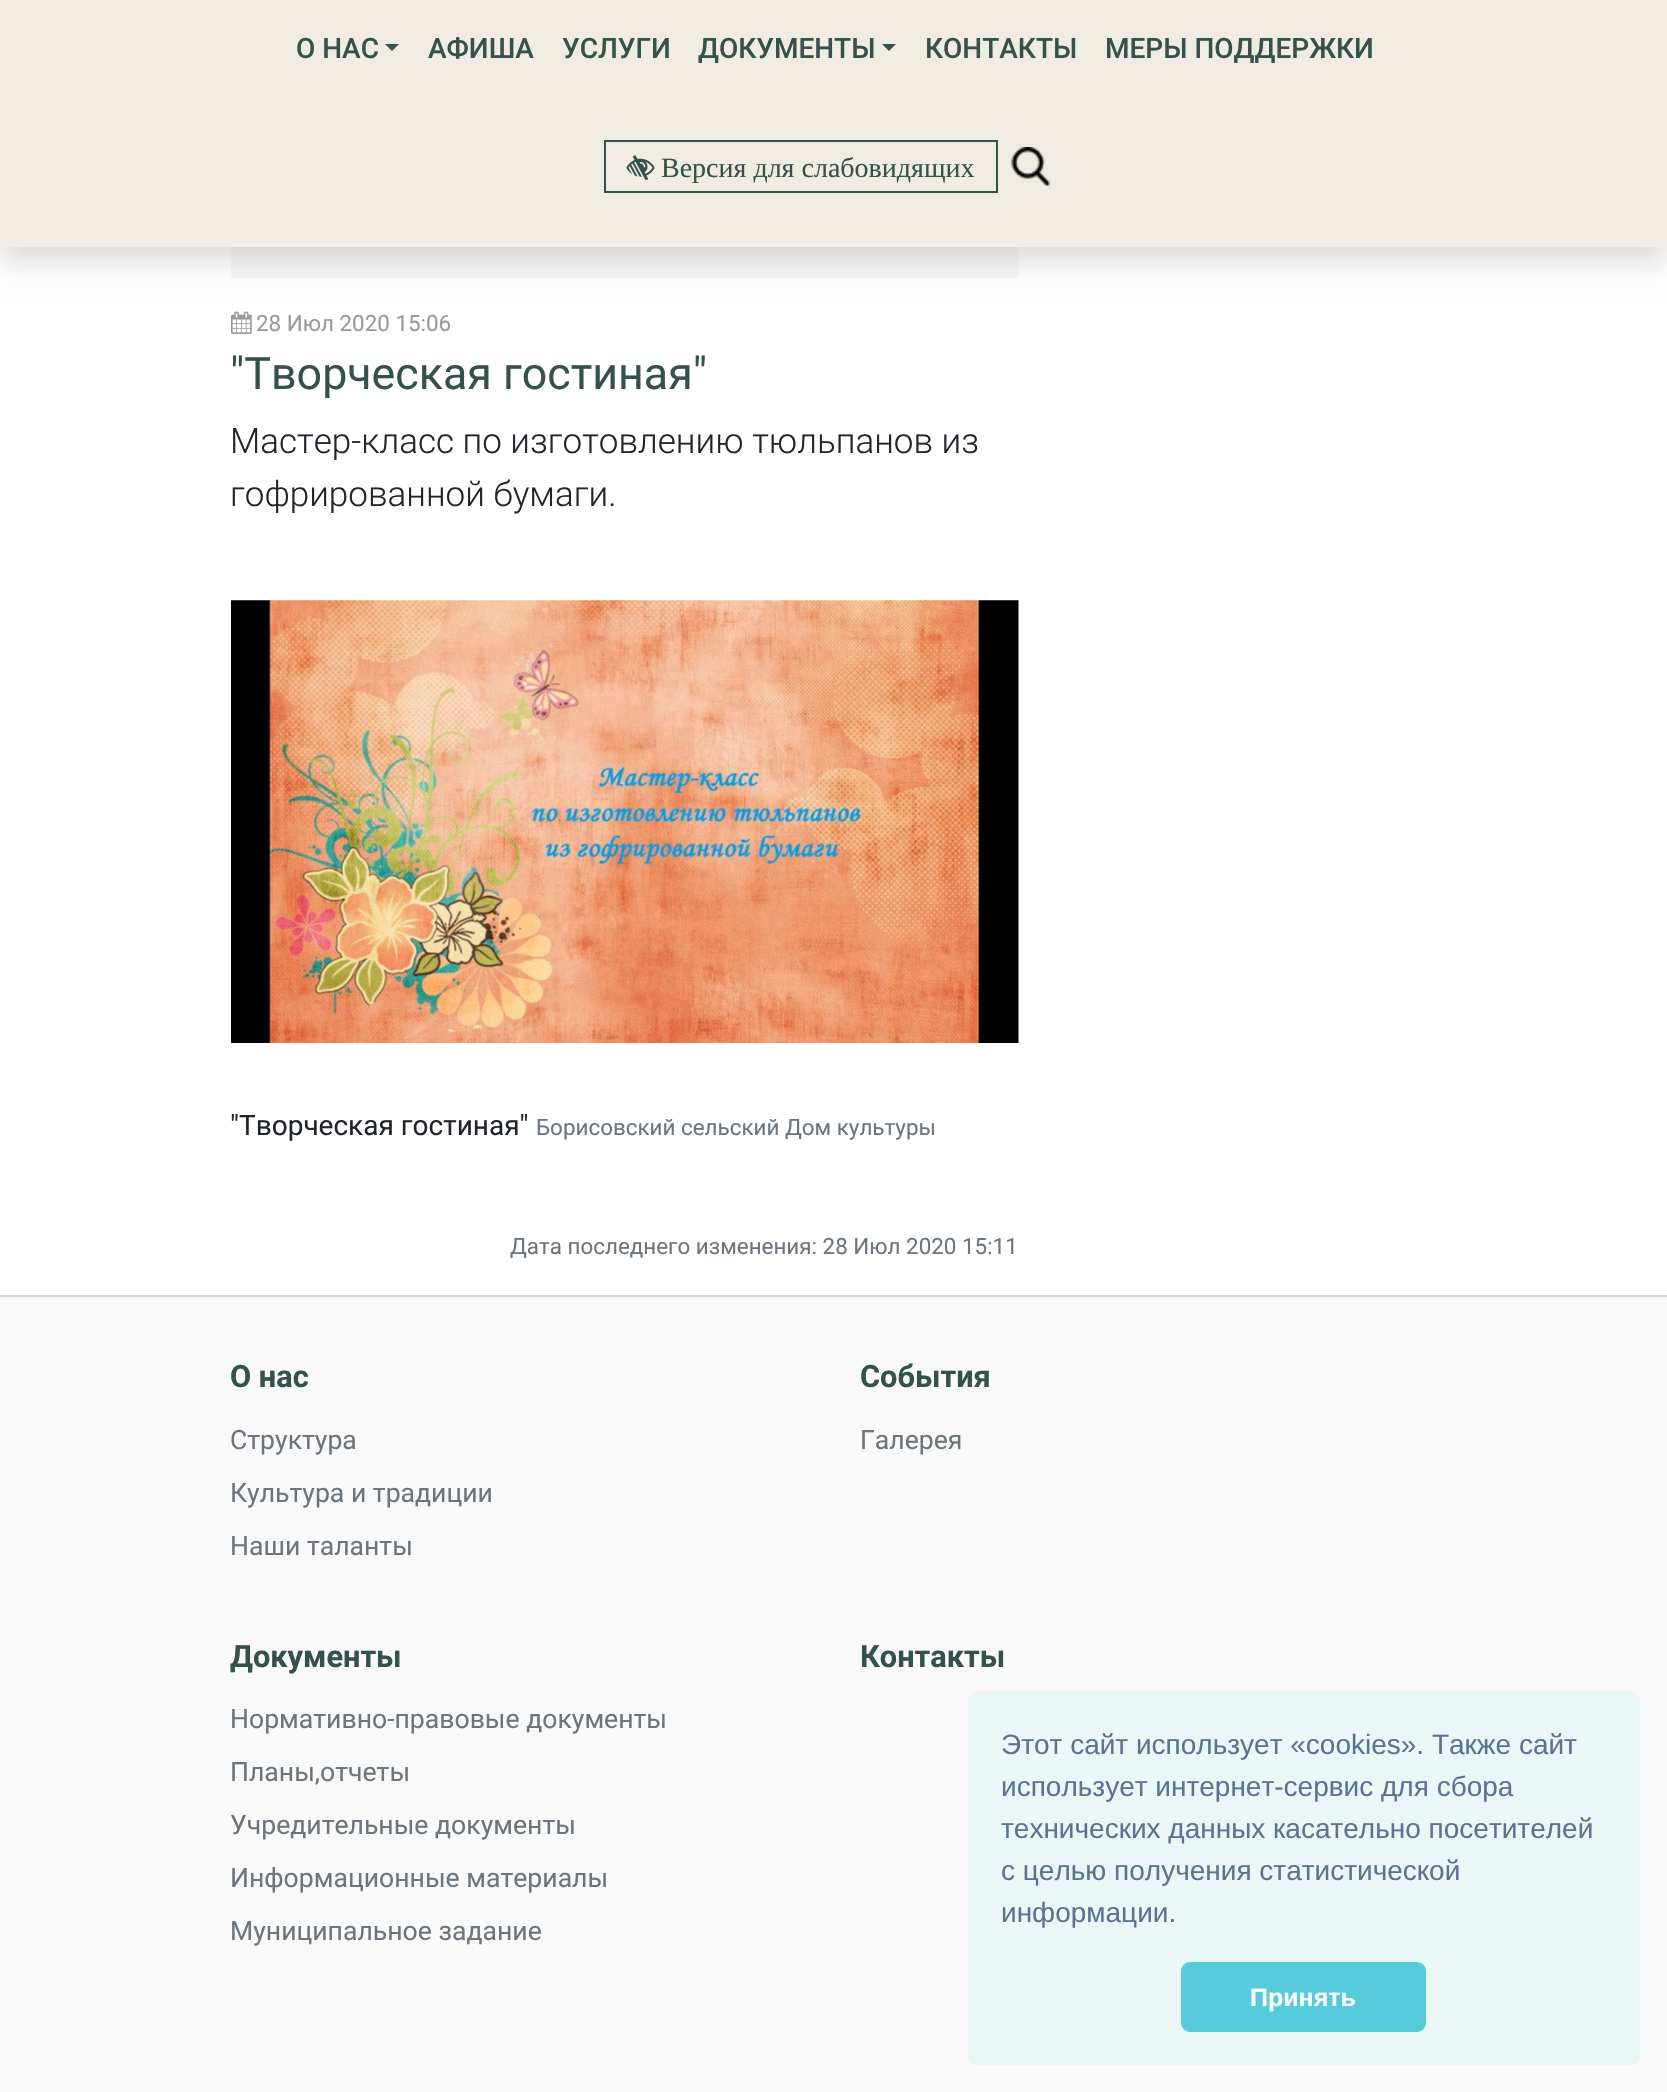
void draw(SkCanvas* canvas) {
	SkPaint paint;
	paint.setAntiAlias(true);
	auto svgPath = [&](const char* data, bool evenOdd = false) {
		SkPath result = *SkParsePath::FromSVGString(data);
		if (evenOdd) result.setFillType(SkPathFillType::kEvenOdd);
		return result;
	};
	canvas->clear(0xffffffff);
	paint.setColor(0xfff9f9f9);
	canvas->drawRect(SkRect::MakeXYWH(231, 247, 788, 31), paint);
	paint.setColor(0x26000000);
	paint.setMaskFilter(SkMaskFilter::MakeBlur(kNormal_SkBlurStyle, 14));
	canvas->drawRect(SkRect::MakeXYWH(0, -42, 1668, 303), paint);
	paint.setMaskFilter(nullptr);
	paint.setColor(0xfff1ece3);
	canvas->drawRect(SkRect::MakeXYWH(0, 0, 1667, 247), paint);
	SkFont f1(fontMgr->matchFamilyStyle("Roboto", SkFontStyle(500, SkFontStyle::kNormal_Width, SkFontStyle::kUpright_Slant)), 28);
	f1.setSubpixel(true);
	paint.setColor(0xff34514c);
	canvas->drawString("О НАС", 296, 58, f1, paint);
	canvas->drawPath(svgPath("M385 44H399L392 51Z"), paint);
	canvas->drawString("АФИША", 428, 58, f1, paint);
	canvas->drawString("УСЛУГИ", 562, 58, f1, paint);
	canvas->drawString("ДОКУМЕНТЫ", 698, 58, f1, paint);
	canvas->drawPath(svgPath("M882 44H896L889 51Z"), paint);
	canvas->drawString("КОНТАКТЫ", 925, 58, f1, paint);
	canvas->drawString("МЕРЫ ПОДДЕРЖКИ", 1105, 58, f1, paint);
	paint.setStroke(true);
	paint.setStrokeWidth(2);
	canvas->drawRect(SkRect::MakeXYWH(605, 141, 392, 51), paint);
	canvas->drawImageRect(SkImages::DeferredFromEncodedData(SkData::MakeFromFileName("img1.png")), SkRect::MakeXYWH(626, 155, 29, 26), SkSamplingOptions());
	SkFont f2(fontMgr->matchFamilyStyle("Liberation Serif", SkFontStyle::Normal()), 28);
	f2.setSubpixel(true);
	paint.setStroke(false);
	canvas->drawString("Версия для слабовидящих", 661, 177, f2, paint);
	canvas->drawImageRect(SkImages::DeferredFromEncodedData(SkData::MakeFromFileName("img2.png")), SkRect::MakeXYWH(1011, 147, 40, 39), SkSamplingOptions());
	canvas->drawImageRect(SkImages::DeferredFromEncodedData(SkData::MakeFromFileName("img3.png")), SkRect::MakeXYWH(231, 311, 21, 23), SkSamplingOptions());
	SkFont f3(fontMgr->matchFamilyStyle("Roboto", SkFontStyle::Normal()), 22.4);
	f3.setSubpixel(true);
	paint.setColor(0xff999999);
	canvas->drawString("28 Июл 2020 15:06", 256, 331, f3, paint);
	SkFont f4(fontMgr->matchFamilyStyle("Roboto", SkFontStyle::Normal()), 44.75);
	f4.setSubpixel(true);
	paint.setColor(0xff34514c);
	canvas->drawString("\"Творческая гостиная\"", 230, 389, f4, paint);
	SkFont f5(fontMgr->matchFamilyStyle("Roboto", SkFontStyle(300, SkFontStyle::kNormal_Width, SkFontStyle::kUpright_Slant)), 35);
	f5.setSubpixel(true);
	paint.setColor(0xff212529);
	canvas->drawString("Мастер-класс по изготовлению тюльпанов из", 230, 453, f5, paint);
	canvas->drawString("гофрированной бумаги.", 230, 506, f5, paint);
	canvas->drawImageRect(SkImages::DeferredFromEncodedData(SkData::MakeFromFileName("img4.png")), SkRect::MakeXYWH(231, 600, 788, 443), SkSamplingOptions());
	SkFont f6(fontMgr->matchFamilyStyle("Roboto", SkFontStyle::Normal()), 28);
	f6.setSubpixel(true);
	canvas->drawString("\"Творческая гостиная\"", 230, 1135, f6, paint);
	paint.setColor(0xff6c757d);
	canvas->drawString("Борисовский сельский Дом культуры", 536, 1135, f3, paint);
	canvas->drawString("Дата последнего изменения: 28 Июл 2020 15:11", 510, 1254, f3, paint);
	paint.setColor(0xfff9f9f9);
	canvas->drawRect(SkRect::MakeXYWH(0, 1297, 1667, 795), paint);
	paint.setColor(0xffced4da);
	canvas->drawRect(SkRect::MakeXYWH(0, 1295, 1667, 2), paint);
	SkFont f7(fontMgr->matchFamilyStyle("Roboto", SkFontStyle::Bold()), 30.75);
	f7.setSubpixel(true);
	paint.setColor(0xff34514c);
	canvas->drawString("О нас", 230, 1387, f7, paint);
	SkFont f8(fontMgr->matchFamilyStyle("Roboto", SkFontStyle::Normal()), 26.6);
	f8.setSubpixel(true);
	paint.setColor(0xff6c757d);
	canvas->drawString("Структура", 230, 1449, f8, paint);
	canvas->drawString("Культура и традиции", 230, 1502, f8, paint);
	canvas->drawString("Наши таланты", 230, 1555, f8, paint);
	paint.setColor(0xff34514c);
	canvas->drawString("События", 860, 1387, f7, paint);
	paint.setColor(0xff6c757d);
	canvas->drawString("Галерея", 860, 1449, f8, paint);
	paint.setColor(0xff34514c);
	canvas->drawString("Документы", 230, 1667, f7, paint);
	paint.setColor(0xff6c757d);
	canvas->drawString("Нормативно-правовые документы", 230, 1728, f8, paint);
	canvas->drawString("Планы,отчеты", 230, 1781, f8, paint);
	canvas->drawString("Учредительные документы", 230, 1834, f8, paint);
	canvas->drawString("Информационные материалы", 230, 1887, f8, paint);
	canvas->drawString("Муниципальное задание", 230, 1940, f8, paint);
	paint.setColor(0xff34514c);
	canvas->drawString("Контакты", 860, 1667, f7, paint);
	paint.setColor(0xffeaf7f7);
	canvas->drawRoundRect(SkRect::MakeXYWH(968, 1691, 672, 374), 9, 9, paint);
	SkFont f9(fontMgr->matchFamilyStyle("Liberation Sans", SkFontStyle::Normal()), 28);
	f9.setSubpixel(true);
	paint.setColor(0xff5c7291);
	canvas->drawString("Этот сайт использует «cookies». Также сайт", 1001, 1754, f9, paint);
	canvas->drawString("использует интернет-сервис для сбора", 1001, 1796, f9, paint);
	canvas->drawString("технических данных касательно посетителей", 1001, 1838, f9, paint);
	canvas->drawString("с целью получения статистической", 1001, 1880, f9, paint);
	canvas->drawString("информации.", 1001, 1922, f9, paint);
	paint.setColor(0xff56cbdb);
	canvas->drawRoundRect(SkRect::MakeXYWH(1181, 1962, 245, 70), 9, 9, paint);
	SkFont f10(fontMgr->matchFamilyStyle("Liberation Sans", SkFontStyle::Bold()), 25);
	f10.setSubpixel(true);
	paint.setColor(0xffffffff);
	canvas->drawString("Принять", 1250, 2006, f10, paint);
}
